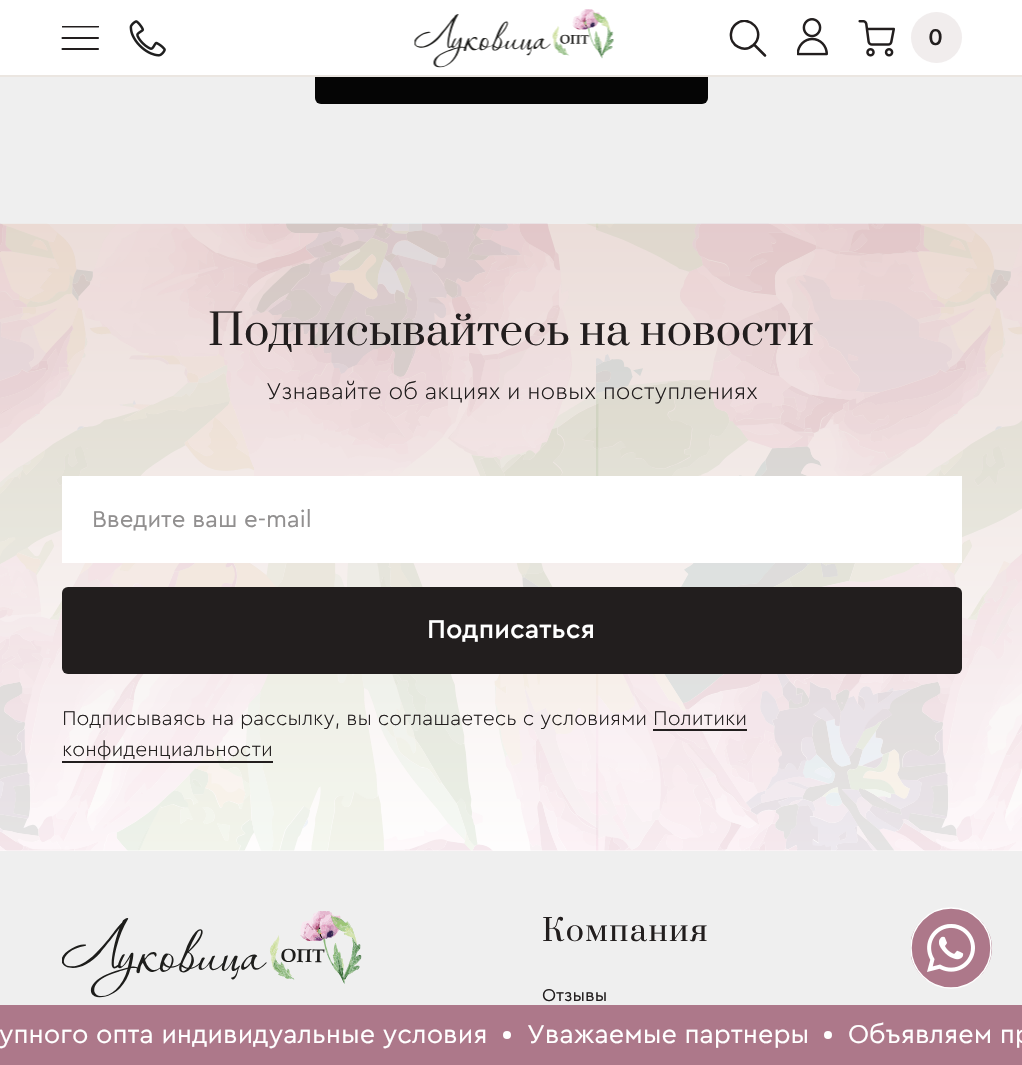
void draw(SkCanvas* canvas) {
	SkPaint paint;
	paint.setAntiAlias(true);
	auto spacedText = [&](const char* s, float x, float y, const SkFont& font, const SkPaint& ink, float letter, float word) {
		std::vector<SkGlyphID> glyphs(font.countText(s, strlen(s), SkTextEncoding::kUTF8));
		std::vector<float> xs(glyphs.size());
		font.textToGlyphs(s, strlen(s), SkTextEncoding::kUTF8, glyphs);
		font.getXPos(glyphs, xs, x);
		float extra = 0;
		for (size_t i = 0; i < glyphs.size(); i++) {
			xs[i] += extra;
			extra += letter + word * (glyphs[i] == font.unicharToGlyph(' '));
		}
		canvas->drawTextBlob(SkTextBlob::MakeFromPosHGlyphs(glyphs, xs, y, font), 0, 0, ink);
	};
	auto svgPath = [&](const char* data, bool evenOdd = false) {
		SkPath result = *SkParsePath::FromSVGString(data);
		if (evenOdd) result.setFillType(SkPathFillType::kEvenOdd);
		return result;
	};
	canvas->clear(0xffefefef);
	paint.setColor(0xff050505);
	canvas->drawRoundRect(SkRect::MakeXYWH(315, 14, 393, 90), 6, 6, paint);
	paint.setColor(0xffffffff);
	canvas->drawRect(SkRect::MakeXYWH(0, 0, 1022, 75), paint);
	canvas->save();
	canvas->clipRect(SkRect::MakeXYWH(62, 26, 37, 25));
	paint.setStroke(true);
	paint.setStrokeWidth(2.1);
	paint.setStrokeCap(SkPaint::kRound_Cap);
	paint.setStrokeJoin(SkPaint::kBevel_Join);
	paint.setColor(0xff221e1e);
	canvas->drawPath(svgPath("M62.5 26.5H98"), paint);
	canvas->restore();
	canvas->drawPath(svgPath("M62.5 38H98M62.5 49H98"), paint);
	canvas->drawImageRect(SkImages::DeferredFromEncodedData(SkData::MakeFromFileName("img1.png")), SkRect::MakeXYWH(129, 20, 37, 37), SkSamplingOptions());
	canvas->drawImageRect(SkImages::DeferredFromEncodedData(SkData::MakeFromFileName("img2.png")), SkRect::MakeXYWH(414, 9, 200, 59), SkSamplingOptions());
	canvas->save();
	canvas->clipRect(SkRect::MakeXYWH(729, 20, 38, 37));
	paint.setStrokeWidth(2.5);
	canvas->drawPath(svgPath("M753.5 45C744 53.5 729.5 45.5 731 33.5C731.5 29.5 733 26.5 736 24C748.5 13.5 767 31.5 753.5 45ZM765 55.5L754.5 45"), paint);
	canvas->restore();
	canvas->drawImageRect(SkImages::DeferredFromEncodedData(SkData::MakeFromFileName("img3.png")), SkRect::MakeXYWH(797, 18, 31, 38), SkSamplingOptions());
	canvas->drawImageRect(SkImages::DeferredFromEncodedData(SkData::MakeFromFileName("img4.png")), SkRect::MakeXYWH(858, 20, 37, 37), SkSamplingOptions());
	paint.setStroke(false);
	paint.setColor(0xfff1eded);
	canvas->drawCircle(936.5, 37.5, 25.5, paint);
	SkFont f1(fontMgr->matchFamilyStyle("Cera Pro", SkFontStyle(500, SkFontStyle::kNormal_Width, SkFontStyle::kUpright_Slant)), 24);
	f1.setSubpixel(true);
	paint.setColor(0xff221e1e);
	canvas->drawString("0", 928, 45, f1, paint);
	paint.setColor(0xffebe6e1);
	canvas->drawRect(SkRect::MakeXYWH(0, 75, 1022, 2), paint);
	canvas->save();
	canvas->clipRect(SkRect::MakeXYWH(911, 906, 81, 84));
	paint.setColor(0xffad788a);
	canvas->drawPath(svgPath("M910 948C910 926 929 908 951 908C973 908 992 926 992 948C992 970 973 988 951 988C929 988 910 970 910 948Z"), paint);
	paint.setStroke(true);
	paint.setStrokeWidth(1.5);
	paint.setStrokeCap(SkPaint::kButt_Cap);
	paint.setStrokeJoin(SkPaint::kMiter_Join);
	paint.setColor(0xffffffff);
	canvas->drawPath(svgPath("M911 948C911 926 929 908 951 908C973 908 991 926 991 948C991 970 973 988 951 988C929 988 911 970 911 948Z"), paint);
	canvas->restore();
	canvas->drawImageRect(SkImages::DeferredFromEncodedData(SkData::MakeFromFileName("img5.png")), SkRect::MakeXYWH(927, 924, 48, 48), SkSamplingOptions());
	paint.setStroke(false);
	{
		const SkColor colors[] = {0xffebddd9, 0xfffefdfd};
		const float stops[] = {0, 1};
		const SkPoint ends[] = {{512, 223}, {512, 851}};
		paint.setShader(SkGradientShader::MakeLinear(ends, colors, stops, 2, SkTileMode::kClamp));
		paint.setAlpha(255);
	}
	canvas->drawRect(SkRect::MakeXYWH(0, 224, 1022, 627), paint);
	canvas->drawImageRect(SkImages::DeferredFromEncodedData(SkData::MakeFromFileName("img7.png")), SkRect::MakeXYWH(596, 223, 426, 628), SkSamplingOptions());
	canvas->drawImageRect(SkImages::DeferredFromEncodedData(SkData::MakeFromFileName("img6.png")), SkRect::MakeXYWH(0, 223, 599, 628), SkSamplingOptions());
	SkFont f2(fontMgr->matchFamilyStyle("Prata", SkFontStyle::Normal()), 42);
	f2.setSubpixel(true);
	paint.setShader(nullptr);
	paint.setColor(0xff221e1e);
	canvas->drawString("Подписывайтесь на новости", 208, 345, f2, paint);
	SkFont f3(fontMgr->matchFamilyStyle("Cera Pro", SkFontStyle(300, SkFontStyle::kNormal_Width, SkFontStyle::kUpright_Slant)), 24);
	f3.setSubpixel(true);
	canvas->drawString("Узнавайте об акциях и новых поступлениях", 266, 399, f3, paint);
	paint.setColor(0xffffffff);
	canvas->drawRect(SkRect::MakeXYWH(62, 476, 900, 87), paint);
	SkFont f4(fontMgr->matchFamilyStyle("Cera Pro", SkFontStyle::Normal()), 24);
	f4.setSubpixel(true);
	paint.setColor(0xff918f8f);
	canvas->drawString("Введите ваш e-mail", 92, 527, f4, paint);
	paint.setColor(0xff221e1e);
	canvas->drawRoundRect(SkRect::MakeXYWH(62, 587, 900, 87), 6, 6, paint);
	SkFont f5(fontMgr->matchFamilyStyle("Cera Pro", SkFontStyle(500, SkFontStyle::kNormal_Width, SkFontStyle::kUpright_Slant)), 27);
	f5.setSubpixel(true);
	paint.setColor(0xffffffff);
	canvas->drawString("Подписаться", 427, 638, f5, paint);
	SkFont f6(fontMgr->matchFamilyStyle("Cera Pro", SkFontStyle(300, SkFontStyle::kNormal_Width, SkFontStyle::kUpright_Slant)), 21);
	f6.setSubpixel(true);
	paint.setColor(0xff221e1e);
	canvas->drawString("Подписываясь на рассылку, вы соглашаетесь с условиями Политики", 62, 725, f6, paint);
	canvas->drawString("конфиденциальности", 62, 756, f6, paint);
	canvas->drawRect(SkRect::MakeXYWH(653, 729, 94, 2), paint);
	canvas->drawRect(SkRect::MakeXYWH(62, 761, 211, 2), paint);
	canvas->drawImageRect(SkImages::DeferredFromEncodedData(SkData::MakeFromFileName("img8.png")), SkRect::MakeXYWH(62, 911, 300, 87), SkSamplingOptions());
	SkFont f7(fontMgr->matchFamilyStyle("Prata", SkFontStyle::Normal()), 30);
	f7.setSubpixel(true);
	spacedText("Компания", 542, 941, f7, paint, 1.5, 0);
	SkFont f8(fontMgr->matchFamilyStyle("Cera Pro", SkFontStyle::Normal()), 18);
	f8.setSubpixel(true);
	canvas->drawString("Отзывы", 542, 1001, f8, paint);
	paint.setColor(0xffad788a);
	canvas->drawRect(SkRect::MakeXYWH(0, 1005, 1022, 60), paint);
	SkFont f9(fontMgr->matchFamilyStyle("Cera Pro", SkFontStyle::Normal()), 27);
	f9.setSubpixel(true);
	paint.setColor(0xffffffff);
	canvas->drawString("упного опта индивидуальные условия", -1, 1043, f9, paint);
	canvas->drawCircle(507, 1035, 4, paint);
	canvas->drawString("Уважаемые партнеры", 527, 1043, f9, paint);
	canvas->drawCircle(828, 1035, 4, paint);
	canvas->drawString("Объявляем пр", 848, 1043, f9, paint);
}
